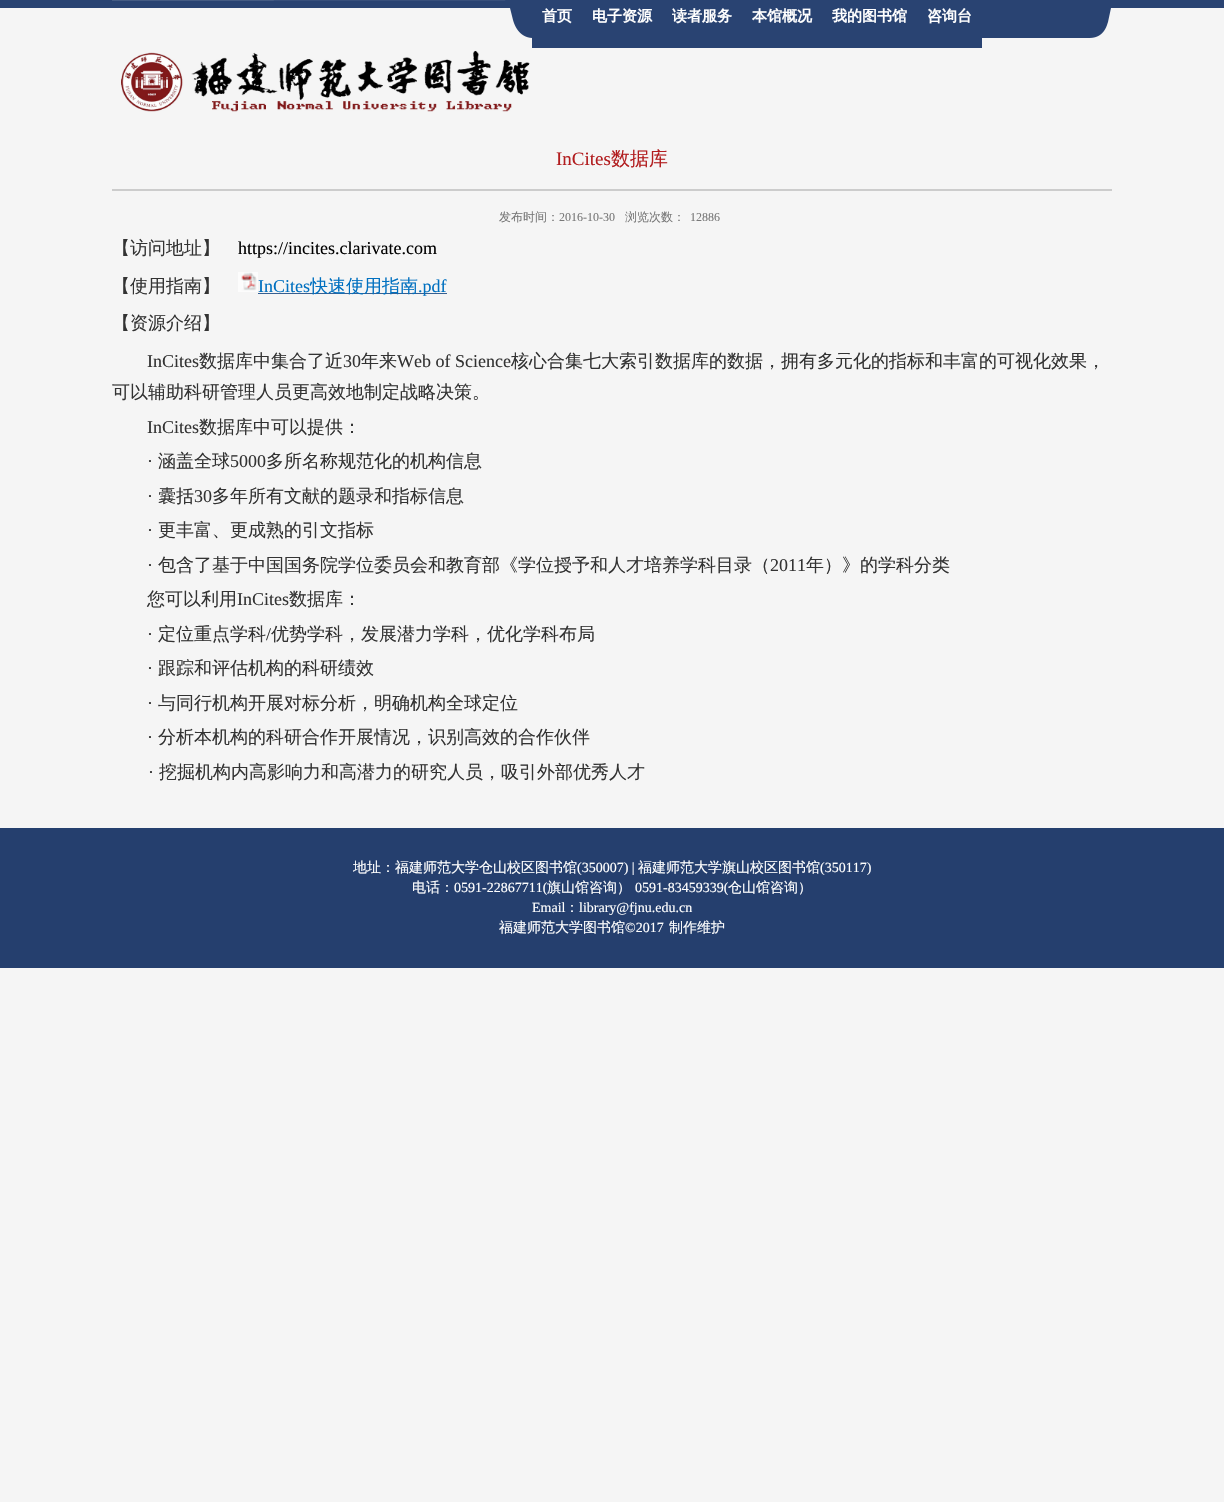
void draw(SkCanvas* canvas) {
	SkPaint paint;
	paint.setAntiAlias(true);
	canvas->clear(0xfff5f5f5);
	paint.setColor(0xff294372);
	canvas->drawRect(SkRect::MakeXYWH(0, 0, 1224, 8), paint);
	canvas->drawImageRect(SkImages::DeferredFromEncodedData(SkData::MakeFromFileName("img1.png")), SkRect::MakeXYWH(112, 0, 999, 38), SkSamplingOptions());
	canvas->drawRect(SkRect::MakeXYWH(532, 37, 50, 11), paint);
	SkFont f1(fontMgr->matchFamilyStyle("WenQuanYi Zen Hei", SkFontStyle::Bold()), 15);
	f1.setSubpixel(true);
	paint.setColor(0xffffffff);
	canvas->drawString("首页", 542, 21, f1, paint);
	paint.setColor(0xff294372);
	canvas->drawRect(SkRect::MakeXYWH(582, 38, 400, 10), paint);
	paint.setColor(0xffffffff);
	canvas->drawString("电子资源", 592, 21, f1, paint);
	canvas->drawString("读者服务", 672, 21, f1, paint);
	canvas->drawString("本馆概况", 752, 21, f1, paint);
	canvas->drawString("我的图书馆", 832, 21, f1, paint);
	canvas->drawString("咨询台", 927, 21, f1, paint);
	canvas->drawImageRect(SkImages::DeferredFromEncodedData(SkData::MakeFromFileName("img2.png")), SkRect::MakeXYWH(121, 50, 409, 62), SkSamplingOptions());
	paint.setColor(0xffcccccc);
	canvas->drawRect(SkRect::MakeXYWH(112, 189, 1000, 2), paint);
	SkFont f2(fontMgr->matchFamilyStyle("Liberation Serif", SkFontStyle::Normal()), 19);
	f2.setSubpixel(true);
	paint.setColor(0xffb21d1f);
	canvas->drawString("InCites", 556, 165, f2, paint);
	SkFont f3(fontMgr->matchFamilyStyle("WenQuanYi Zen Hei", SkFontStyle(500, SkFontStyle::kNormal_Width, SkFontStyle::kUpright_Slant)), 19);
	f3.setSubpixel(true);
	canvas->drawString("数据库", 611, 165, f3, paint);
	SkFont f4(fontMgr->matchFamilyStyle("WenQuanYi Zen Hei", SkFontStyle(500, SkFontStyle::kNormal_Width, SkFontStyle::kUpright_Slant)), 12);
	f4.setSubpixel(true);
	paint.setColor(0xff787878);
	canvas->drawString("发布时间：", 499, 221, f4, paint);
	SkFont f5(fontMgr->matchFamilyStyle("Liberation Serif", SkFontStyle::Normal()), 12);
	f5.setSubpixel(true);
	canvas->drawString("2016-10-30", 559, 221, f5, paint);
	canvas->drawString("浏览次数：", 625, 221, f4, paint);
	canvas->drawString("12886", 690, 221, f5, paint);
	SkFont f6(fontMgr->matchFamilyStyle("WenQuanYi Zen Hei", SkFontStyle(500, SkFontStyle::kNormal_Width, SkFontStyle::kUpright_Slant)), 18);
	f6.setSubpixel(true);
	paint.setColor(0xff333333);
	canvas->drawString("【访问地址】", 112, 254, f6, paint);
	SkFont f7(fontMgr->matchFamilyStyle("Liberation Serif", SkFontStyle::Normal()), 18);
	f7.setSubpixel(true);
	paint.setColor(0xff000000);
	canvas->drawString("https://incites.clarivate.com", 238, 254, f7, paint);
	paint.setColor(0xff333333);
	canvas->drawString("【使用指南】", 112, 292, f6, paint);
	canvas->drawImageRect(SkImages::DeferredFromEncodedData(SkData::MakeFromFileName("img3.png")), SkRect::MakeXYWH(238, 272, 20, 20), SkSamplingOptions());
	paint.setColor(0xff0070c0);
	canvas->drawString("InCites", 258, 292, f7, paint);
	paint.setColor(0xff366092);
	canvas->drawRect(SkRect::MakeXYWH(258, 293, 189, 1), paint);
	paint.setColor(0xff0070c0);
	canvas->drawString("快速使用指南", 310, 292, f6, paint);
	canvas->drawString(".pdf", 418, 292, f7, paint);
	paint.setColor(0xff333333);
	canvas->drawString("【资源介绍】", 112, 329, f6, paint);
	canvas->drawString("InCites", 147, 367, f7, paint);
	canvas->drawString("数据库中集合了近", 199, 367, f6, paint);
	canvas->drawString("30", 343, 367, f7, paint);
	canvas->drawString("年来", 361, 367, f6, paint);
	canvas->drawString("Web of Science", 397, 367, f7, paint);
	canvas->drawString("核心合集七大索引数据库的数据，拥有多元化的指标和丰富的可视化效果，", 511, 367, f6, paint);
	canvas->drawString("可以辅助科研管理人员更高效地制定战略决策。", 112, 398, f6, paint);
	canvas->drawString("InCites", 147, 433, f7, paint);
	canvas->drawString("数据库中可以提供：", 199, 433, f6, paint);
	canvas->drawString("·", 147, 467, f7, paint);
	canvas->drawString("涵盖全球", 158, 467, f6, paint);
	canvas->drawString("5000", 230, 467, f7, paint);
	canvas->drawString("多所名称规范化的机构信息", 266, 467, f6, paint);
	canvas->drawString("·", 147, 502, f7, paint);
	canvas->drawString("囊括", 158, 502, f6, paint);
	canvas->drawString("30", 194, 502, f7, paint);
	canvas->drawString("多年所有文献的题录和指标信息", 212, 502, f6, paint);
	canvas->drawString("·", 147, 536, f7, paint);
	canvas->drawString("更丰富、更成熟的引文指标", 158, 536, f6, paint);
	canvas->drawString("·", 147, 571, f7, paint);
	canvas->drawString("包含了基于中国国务院学位委员会和教育部《学位授予和人才培养学科目录（", 158, 571, f6, paint);
	canvas->drawString("2011", 770, 571, f7, paint);
	canvas->drawString("年）》的学科分类", 806, 571, f6, paint);
	canvas->drawString("您可以利用", 147, 605, f6, paint);
	canvas->drawString("InCites", 237, 605, f7, paint);
	canvas->drawString("数据库：", 289, 605, f6, paint);
	canvas->drawString("·", 147, 640, f7, paint);
	canvas->drawString("定位重点学科", 158, 640, f6, paint);
	canvas->drawString("/", 266, 640, f7, paint);
	canvas->drawString("优势学科，发展潜力学科，优化学科布局", 271, 640, f6, paint);
	canvas->drawString("·", 147, 674, f7, paint);
	canvas->drawString("跟踪和评估机构的科研绩效", 158, 674, f6, paint);
	canvas->drawString("·", 147, 709, f7, paint);
	canvas->drawString("与同行机构开展对标分析，明确机构全球定位", 158, 709, f6, paint);
	canvas->drawString("·", 147, 743, f7, paint);
	canvas->drawString("分析本机构的科研合作开展情况，识别高效的合作伙伴", 158, 743, f6, paint);
	canvas->drawString("·", 148, 778, f7, paint);
	canvas->drawString("挖掘机构内高影响力和高潜力的研究人员，吸引外部优秀人才", 159, 778, f6, paint);
	paint.setColor(0xff253f6e);
	canvas->drawRect(SkRect::MakeXYWH(0, 828, 1224, 140), paint);
	SkFont f8(fontMgr->matchFamilyStyle("WenQuanYi Zen Hei", SkFontStyle(500, SkFontStyle::kNormal_Width, SkFontStyle::kUpright_Slant)), 14);
	f8.setSubpixel(true);
	paint.setColor(0xffffffff);
	canvas->drawString("地址：福建师范大学仓山校区图书馆", 353, 872, f8, paint);
	SkFont f9(fontMgr->matchFamilyStyle("Liberation Serif", SkFontStyle::Normal()), 14);
	f9.setSubpixel(true);
	canvas->drawString("(350007) |", 577, 872, f9, paint);
	canvas->drawString("福建师范大学旗山校区图书馆", 638, 872, f8, paint);
	canvas->drawString("(350117)", 820, 872, f9, paint);
	canvas->drawString("电话：", 412, 892, f8, paint);
	canvas->drawString("0591-22867711(", 454, 892, f9, paint);
	canvas->drawString("旗山馆咨询）", 547, 892, f8, paint);
	canvas->drawString("0591-83459339(", 635, 892, f9, paint);
	canvas->drawString("仓山馆咨询）", 728, 892, f8, paint);
	canvas->drawString("Email", 532, 912, f9, paint);
	canvas->drawString("：", 565, 912, f8, paint);
	canvas->drawString("library@fjnu.edu.cn", 579, 912, f9, paint);
	canvas->drawString("福建师范大学图书馆", 499, 932, f8, paint);
	canvas->drawString("©2017", 625, 932, f9, paint);
	canvas->drawString("制作维护", 669, 932, f8, paint);
}
